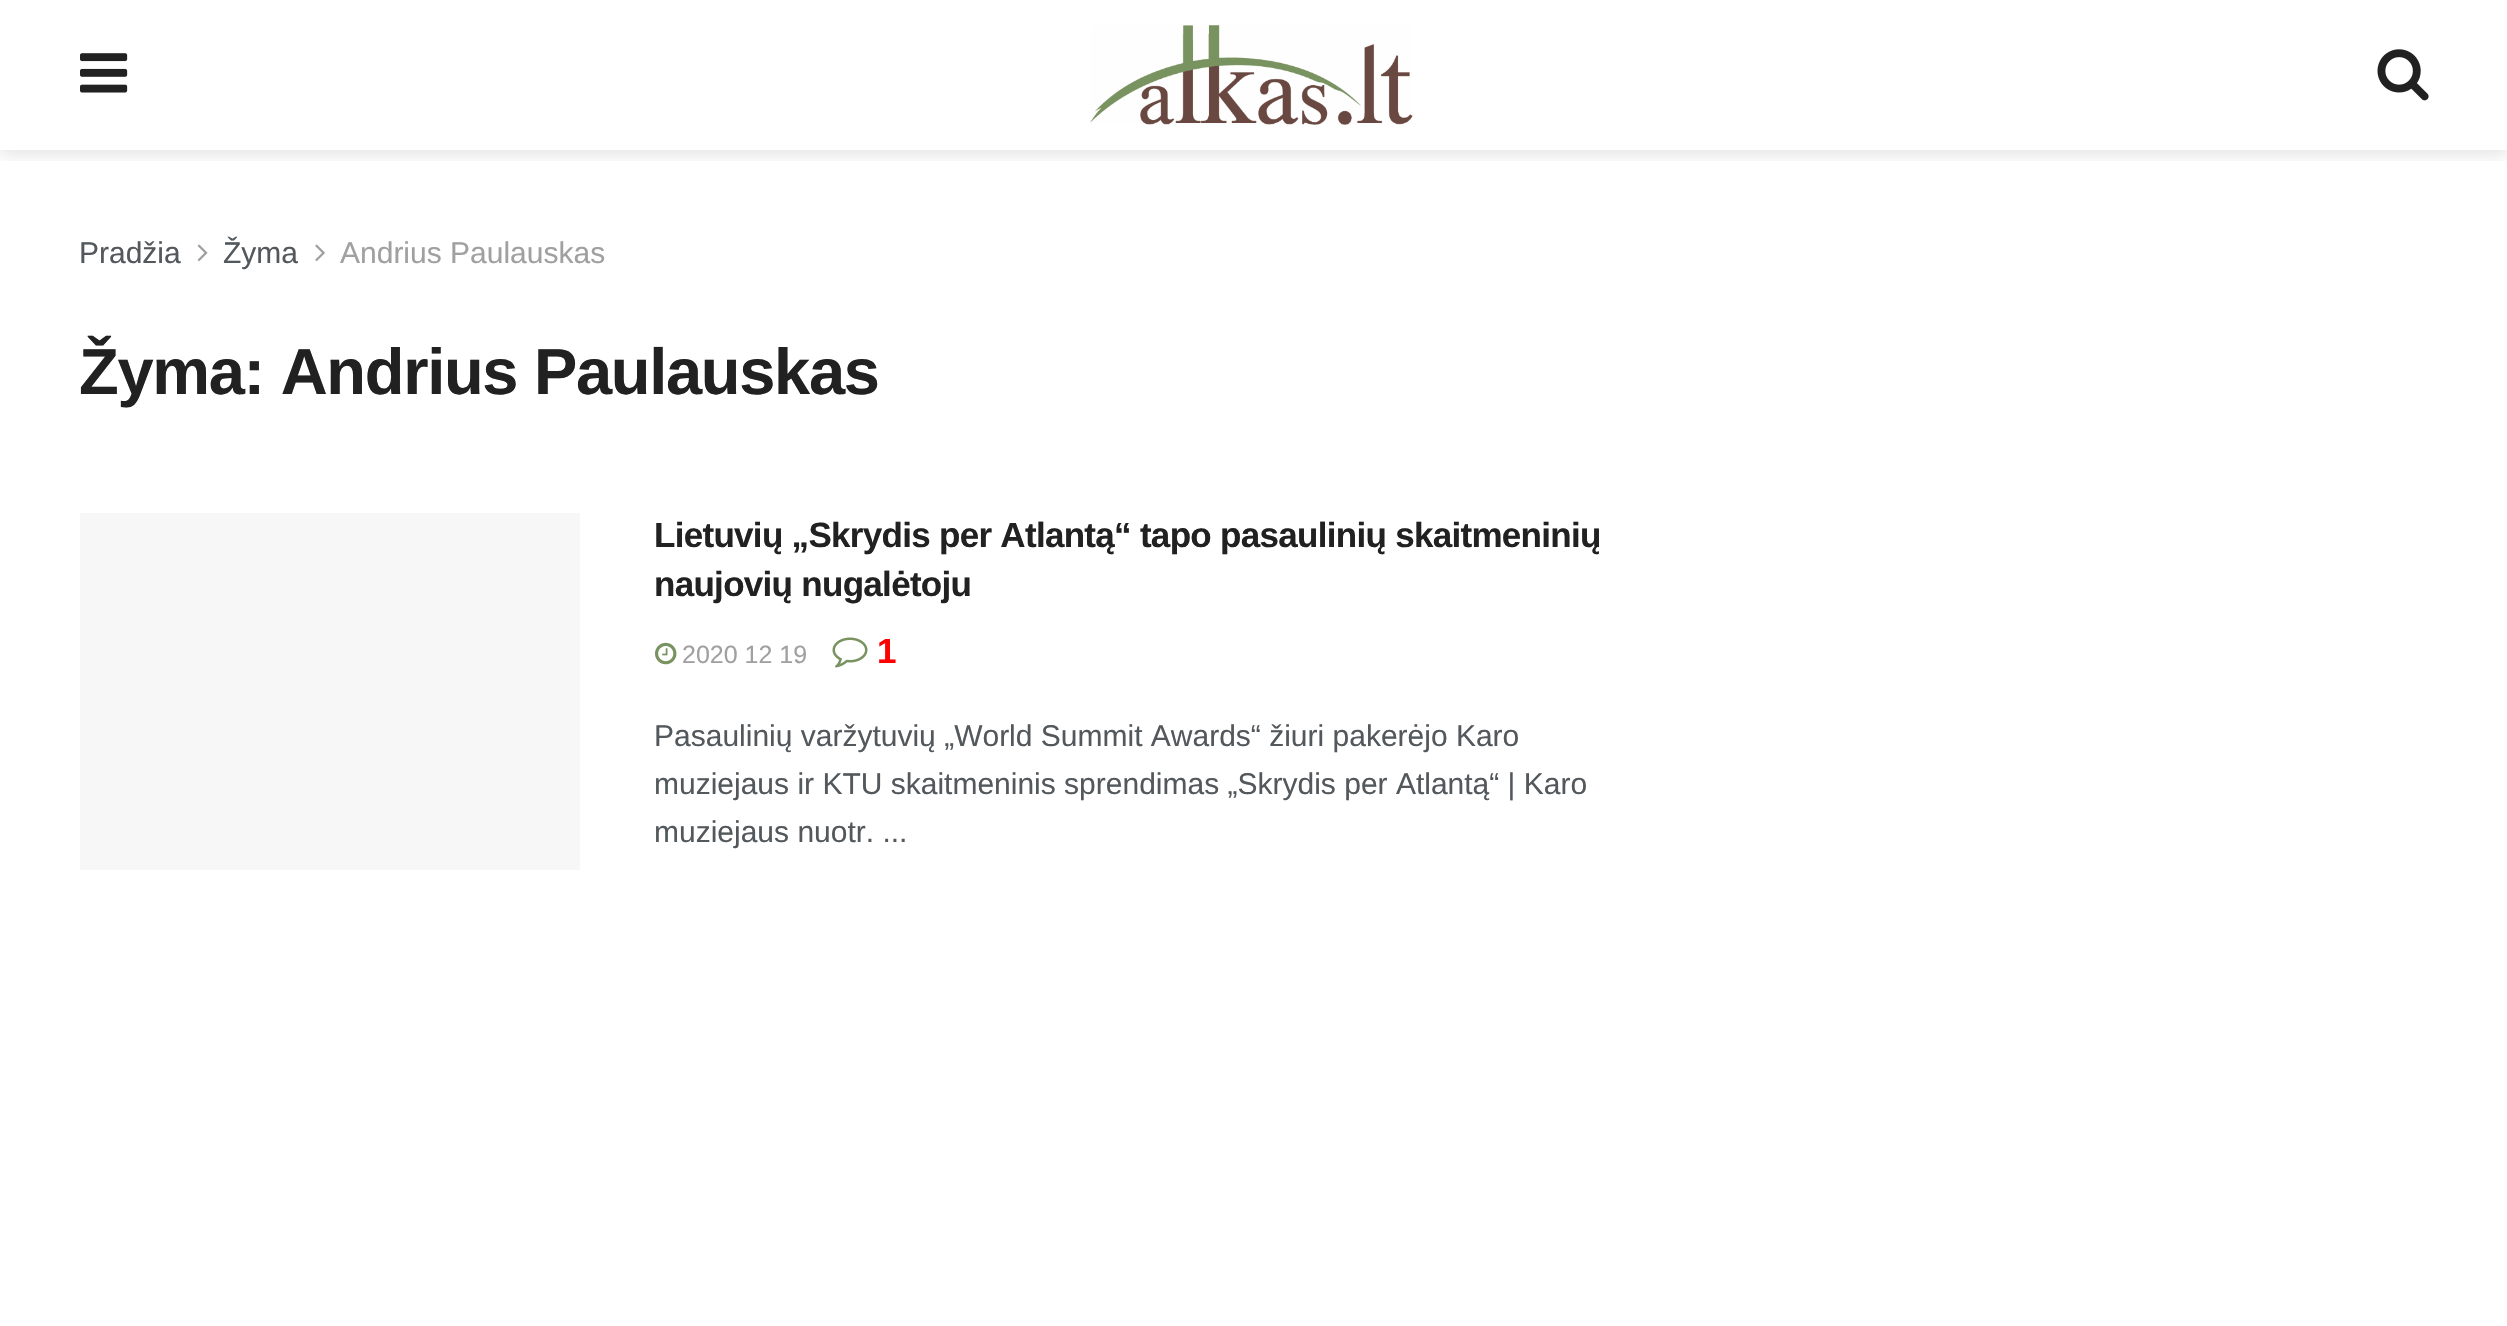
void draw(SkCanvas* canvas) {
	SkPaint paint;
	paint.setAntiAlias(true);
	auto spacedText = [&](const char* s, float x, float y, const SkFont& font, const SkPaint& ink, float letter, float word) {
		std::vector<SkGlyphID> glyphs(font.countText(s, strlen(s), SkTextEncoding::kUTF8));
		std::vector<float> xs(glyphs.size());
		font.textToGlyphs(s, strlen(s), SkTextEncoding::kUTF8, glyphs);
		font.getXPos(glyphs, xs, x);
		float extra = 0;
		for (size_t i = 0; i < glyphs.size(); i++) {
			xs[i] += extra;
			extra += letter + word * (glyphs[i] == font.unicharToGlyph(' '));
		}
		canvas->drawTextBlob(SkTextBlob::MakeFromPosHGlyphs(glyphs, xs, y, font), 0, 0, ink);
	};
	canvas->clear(0xffffffff);
	canvas->save();
	canvas->clipRect(SkRect::MakeXYWH(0, 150, 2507, 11));
	paint.setColor(0x1a000000);
	paint.setMaskFilter(SkMaskFilter::MakeBlur(kNormal_SkBlurStyle, 7.5));
	canvas->drawRect(SkRect::MakeXYWH(0, 5, 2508, 150), paint);
	paint.setMaskFilter(nullptr);
	canvas->restore();
	canvas->drawImageRect(SkImages::DeferredFromEncodedData(SkData::MakeFromFileName("img1.png")), SkRect::MakeXYWH(80, 53, 48, 40), SkSamplingOptions());
	canvas->drawImageRect(SkImages::DeferredFromEncodedData(SkData::MakeFromFileName("img2.png")), SkRect::MakeXYWH(1090, 25, 323, 100), SkSamplingOptions());
	canvas->drawImageRect(SkImages::DeferredFromEncodedData(SkData::MakeFromFileName("img3.png")), SkRect::MakeXYWH(2377, 49, 52, 52), SkSamplingOptions());
	SkFont f1(fontMgr->matchFamilyStyle("Liberation Sans", SkFontStyle::Normal()), 30);
	f1.setSubpixel(true);
	paint.setColor(0xff53585c);
	canvas->drawString("Pradžia", 79, 263, f1, paint);
	canvas->drawImageRect(SkImages::DeferredFromEncodedData(SkData::MakeFromFileName("img4.png")), SkRect::MakeXYWH(197, 244, 11, 18), SkSamplingOptions());
	canvas->drawString("Žyma", 223, 263, f1, paint);
	canvas->drawImageRect(SkImages::DeferredFromEncodedData(SkData::MakeFromFileName("img5.png")), SkRect::MakeXYWH(315, 244, 10, 18), SkSamplingOptions());
	paint.setColor(0xffa0a0a0);
	canvas->drawString("Andrius Paulauskas", 340, 263, f1, paint);
	SkFont f2(fontMgr->matchFamilyStyle("Liberation Sans", SkFontStyle::Bold()), 65);
	f2.setSubpixel(true);
	paint.setColor(0xff212121);
	spacedText("Žyma: Andrius Paulauskas", 79, 394, f2, paint, -1.3, 0);
	paint.setColor(0xfff7f7f7);
	canvas->drawRect(SkRect::MakeXYWH(80, 513, 500, 357), paint);
	SkFont f3(fontMgr->matchFamilyStyle("Liberation Sans", SkFontStyle::Bold()), 35);
	f3.setSubpixel(true);
	paint.setColor(0xff212121);
	spacedText("Lietuvių „Skrydis per Atlantą“ tapo pasaulinių skaitmeninių", 654, 547, f3, paint, -0.7, 0);
	spacedText("naujovių nugalėtoju", 654, 596, f3, paint, -0.7, 0);
	canvas->drawImageRect(SkImages::DeferredFromEncodedData(SkData::MakeFromFileName("img6.png")), SkRect::MakeXYWH(655, 642, 22, 23), SkSamplingOptions());
	SkFont f4(fontMgr->matchFamilyStyle("Liberation Sans", SkFontStyle::Normal()), 25);
	f4.setSubpixel(true);
	paint.setColor(0xffa0a0a0);
	canvas->drawString("2020 12 19", 682, 663, f4, paint);
	canvas->drawImageRect(SkImages::DeferredFromEncodedData(SkData::MakeFromFileName("img7.png")), SkRect::MakeXYWH(832, 637, 36, 31), SkSamplingOptions());
	paint.setColor(0xffff0000);
	canvas->drawString("1", 877, 663, f3, paint);
	paint.setColor(0xff53585c);
	canvas->drawString("Pasaulinių varžytuvių „World Summit Awards“ žiuri pakerėjo Karo", 654, 746, f1, paint);
	canvas->drawString("muziejaus ir KTU skaitmeninis sprendimas „Skrydis per Atlantą“ | Karo", 654, 794, f1, paint);
	canvas->drawString("muziejaus nuotr. ...", 654, 842, f1, paint);
}
